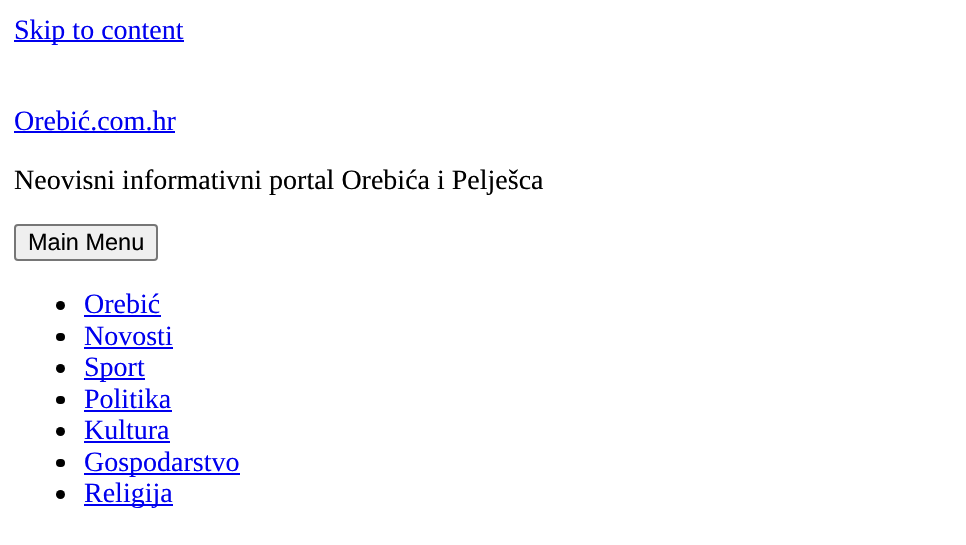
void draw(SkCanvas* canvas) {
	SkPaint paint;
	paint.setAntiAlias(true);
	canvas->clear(0xffffffff);
	paint.setColor(0xff0000ee);
	canvas->drawRect(SkRect::MakeXYWH(14, 40, 170, 2), paint);
	SkFont f1(fontMgr->matchFamilyStyle("Liberation Serif", SkFontStyle::Normal()), 28);
	f1.setSubpixel(true);
	canvas->drawString("Skip to content", 14, 39, f1, paint);
	canvas->drawString("Orebić.com.hr", 14, 130, f1, paint);
	canvas->drawRect(SkRect::MakeXYWH(14, 131, 161, 2), paint);
	paint.setColor(0xff000000);
	canvas->drawString("Neovisni informativni portal Orebića i Pelješca", 14, 189, f1, paint);
	paint.setColor(0xffefefef);
	canvas->drawRoundRect(SkRect::MakeXYWH(15, 225, 142, 35), 3, 3, paint);
	paint.setStroke(true);
	paint.setStrokeWidth(2);
	paint.setColor(0xff767676);
	canvas->drawRoundRect(SkRect::MakeXYWH(15, 225, 142, 35), 3, 3, paint);
	SkFont f2(fontMgr->matchFamilyStyle("Liberation Sans", SkFontStyle::Normal()), 23.5);
	f2.setSubpixel(true);
	paint.setStroke(false);
	paint.setColor(0xff000000);
	canvas->drawString("Main Menu", 28, 250, f2, paint);
	canvas->drawCircle(60.5, 305.5, 4.5, paint);
	paint.setColor(0xff0000ee);
	canvas->drawString("Orebić", 84, 313, f1, paint);
	canvas->drawRect(SkRect::MakeXYWH(84, 315, 77, 2), paint);
	paint.setColor(0xff000000);
	canvas->drawRoundRect(SkRect::MakeXYWH(56, 333, 9, 8), 4, 4, paint);
	paint.setColor(0xff0000ee);
	canvas->drawString("Novosti", 84, 345, f1, paint);
	canvas->drawRect(SkRect::MakeXYWH(84, 347, 89, 2), paint);
	paint.setColor(0xff000000);
	canvas->drawCircle(60.5, 368.5, 4.5, paint);
	paint.setColor(0xff0000ee);
	canvas->drawRect(SkRect::MakeXYWH(84, 378, 61, 2), paint);
	canvas->drawString("Sport", 84, 376, f1, paint);
	paint.setColor(0xff000000);
	canvas->drawRoundRect(SkRect::MakeXYWH(56, 396, 9, 8), 4, 4, paint);
	paint.setColor(0xff0000ee);
	canvas->drawString("Politika", 84, 408, f1, paint);
	canvas->drawRect(SkRect::MakeXYWH(84, 410, 88, 2), paint);
	paint.setColor(0xff000000);
	canvas->drawCircle(60.5, 431.5, 4.5, paint);
	paint.setColor(0xff0000ee);
	canvas->drawString("Kultura", 84, 439, f1, paint);
	canvas->drawRect(SkRect::MakeXYWH(84, 441, 86, 2), paint);
	paint.setColor(0xff000000);
	canvas->drawRoundRect(SkRect::MakeXYWH(56, 459, 9, 8), 4, 4, paint);
	paint.setColor(0xff0000ee);
	canvas->drawRect(SkRect::MakeXYWH(84, 473, 156, 2), paint);
	canvas->drawString("Gospodarstvo", 84, 471, f1, paint);
	paint.setColor(0xff000000);
	canvas->drawCircle(60.5, 494.5, 4.5, paint);
	paint.setColor(0xff0000ee);
	canvas->drawRect(SkRect::MakeXYWH(84, 504, 89, 2), paint);
	canvas->drawString("Religija", 84, 502, f1, paint);
}
